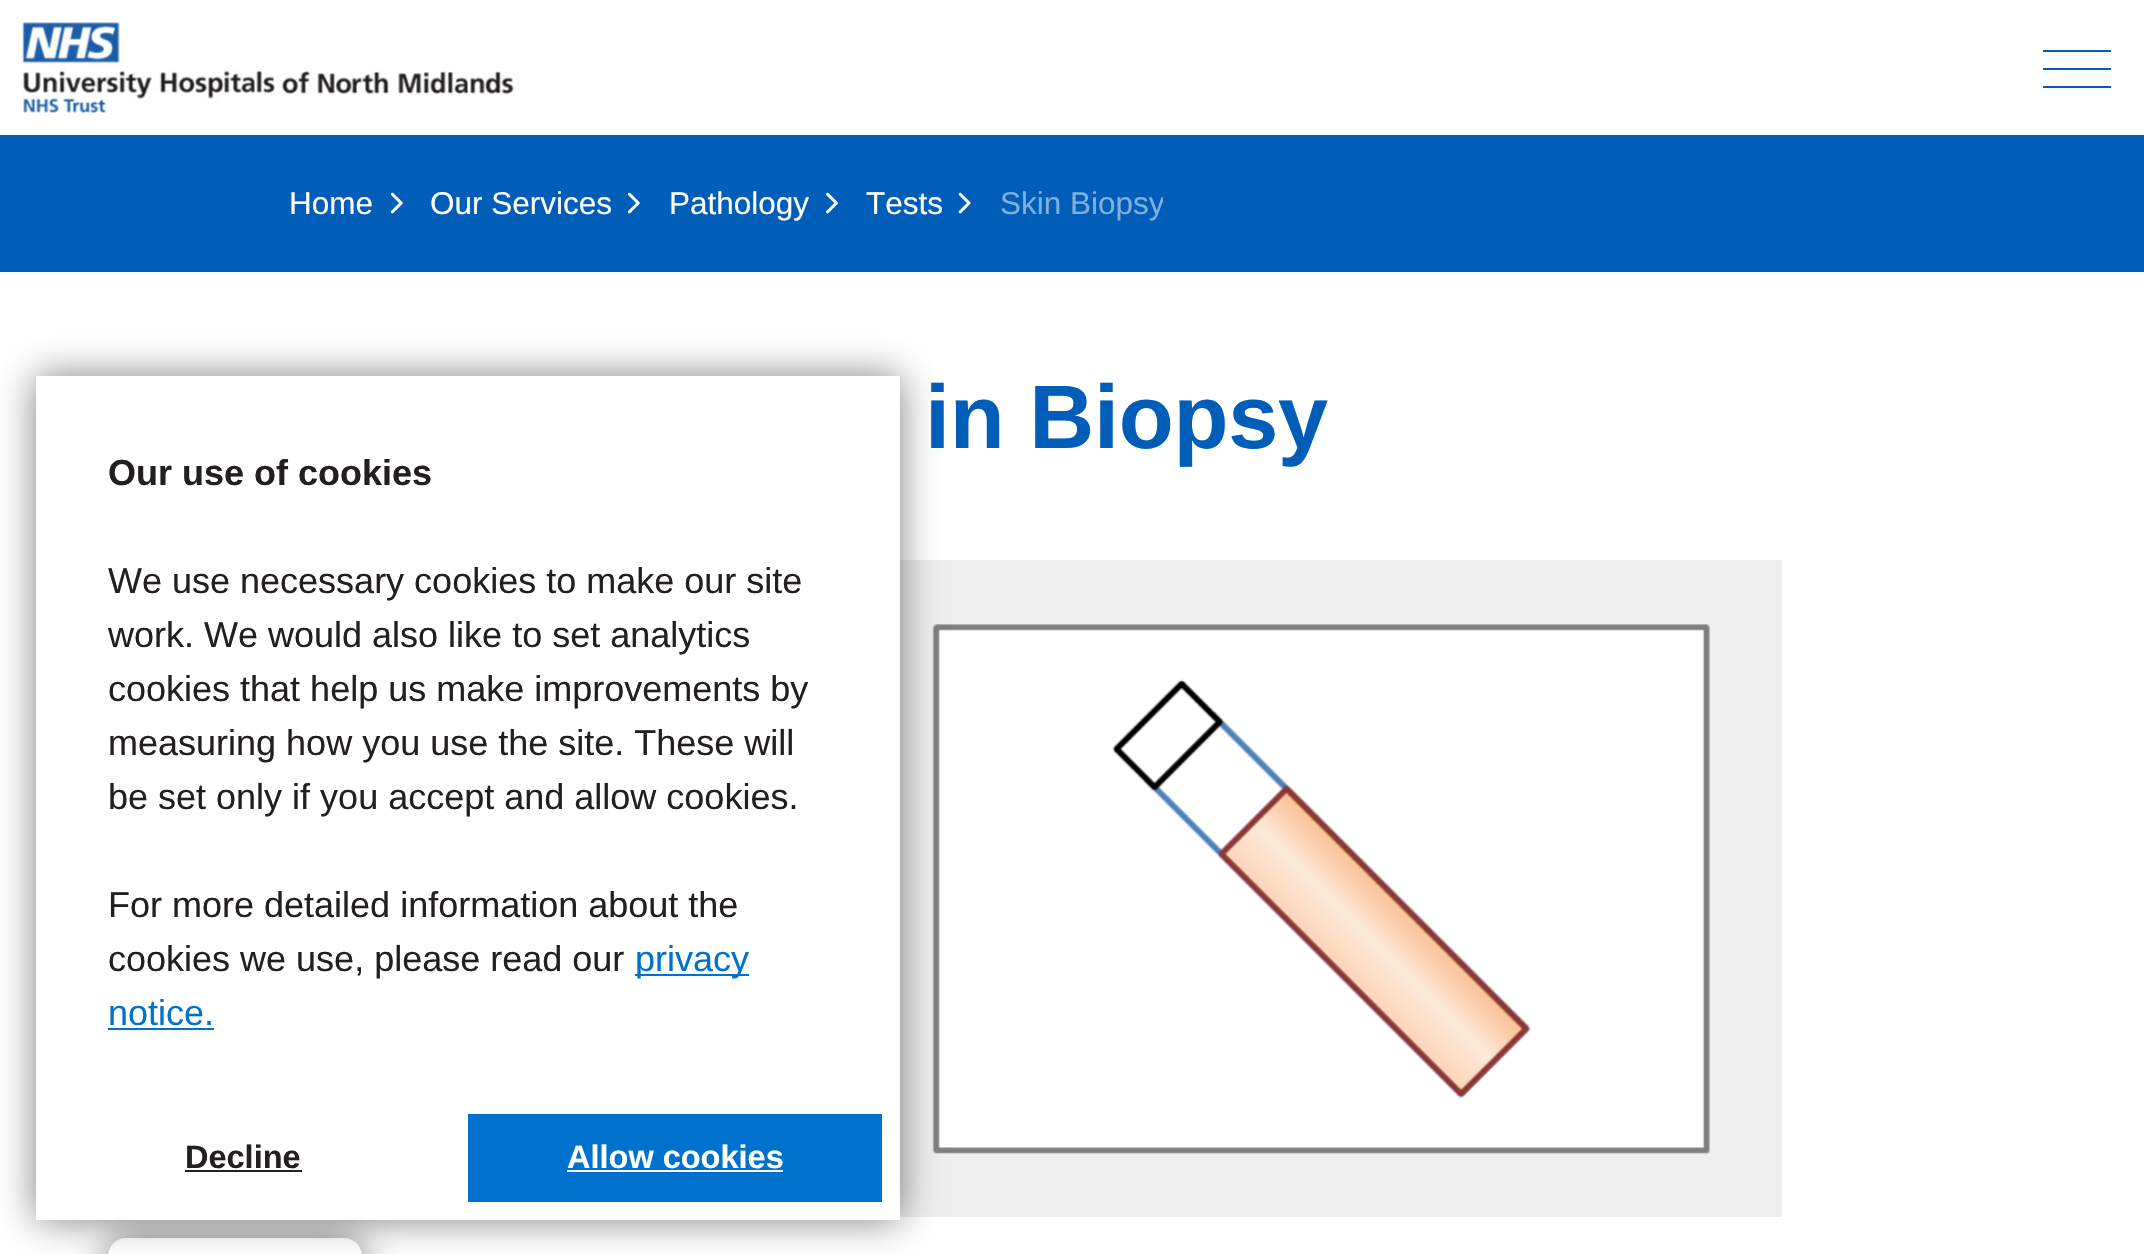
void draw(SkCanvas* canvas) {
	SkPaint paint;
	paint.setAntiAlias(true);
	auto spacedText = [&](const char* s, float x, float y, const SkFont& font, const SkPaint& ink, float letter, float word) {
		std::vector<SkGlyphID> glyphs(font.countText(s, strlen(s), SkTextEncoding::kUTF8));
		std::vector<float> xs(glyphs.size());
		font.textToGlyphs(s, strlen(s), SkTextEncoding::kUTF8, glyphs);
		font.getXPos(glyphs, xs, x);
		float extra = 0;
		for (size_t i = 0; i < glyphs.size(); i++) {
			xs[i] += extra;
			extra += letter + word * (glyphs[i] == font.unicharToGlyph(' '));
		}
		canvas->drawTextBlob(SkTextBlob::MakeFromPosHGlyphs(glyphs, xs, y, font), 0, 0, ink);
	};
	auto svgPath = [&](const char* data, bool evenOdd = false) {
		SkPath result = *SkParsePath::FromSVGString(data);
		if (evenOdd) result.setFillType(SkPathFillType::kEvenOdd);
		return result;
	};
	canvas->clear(0xffffffff);
	canvas->drawImageRect(SkImages::DeferredFromEncodedData(SkData::MakeFromFileName("img1.png")), SkRect::MakeXYWH(22, 22, 492, 91), SkSamplingOptions());
	paint.setColor(0xff005eb8);
	canvas->drawRect(SkRect::MakeXYWH(2043, 68, 68, 2), paint);
	canvas->drawRect(SkRect::MakeXYWH(2043, 50, 68, 2), paint);
	canvas->drawRect(SkRect::MakeXYWH(2043, 86, 68, 2), paint);
	canvas->drawRect(SkRect::MakeXYWH(0, 135, 2144, 137), paint);
	SkFont f1(fontMgr->matchFamilyStyle("Liberation Sans", SkFontStyle::Normal()), 31.5);
	f1.setSubpixel(true);
	paint.setColor(0xffffffff);
	canvas->drawString("Home", 289, 214, f1, paint);
	canvas->drawImageRect(SkImages::DeferredFromEncodedData(SkData::MakeFromFileName("img2.png")), SkRect::MakeXYWH(390, 192, 13, 22), SkSamplingOptions());
	canvas->drawString("Our Services", 430, 214, f1, paint);
	canvas->drawImageRect(SkImages::DeferredFromEncodedData(SkData::MakeFromFileName("img3.png")), SkRect::MakeXYWH(627, 192, 13, 22), SkSamplingOptions());
	canvas->drawString("Pathology", 669, 214, f1, paint);
	canvas->drawImageRect(SkImages::DeferredFromEncodedData(SkData::MakeFromFileName("img4.png")), SkRect::MakeXYWH(826, 192, 12, 22), SkSamplingOptions());
	canvas->drawString("Tests", 866, 214, f1, paint);
	canvas->drawImageRect(SkImages::DeferredFromEncodedData(SkData::MakeFromFileName("img5.png")), SkRect::MakeXYWH(958, 192, 13, 22), SkSamplingOptions());
	canvas->save();
	canvas->clipRect(SkRect::MakeXYWH(999, 169, 164, 70));
	paint.setColor(0xff80afdc);
	canvas->drawString("Skin Biopsy", 1000, 214, f1, paint);
	canvas->restore();
	SkFont f2(fontMgr->matchFamilyStyle("Liberation Sans", SkFontStyle::Bold()), 90);
	f2.setSubpixel(true);
	paint.setColor(0xff005eb8);
	spacedText("in Biopsy", 925, 448, f2, paint, -0.25, 0);
	canvas->drawImageRect(SkImages::DeferredFromEncodedData(SkData::MakeFromFileName("img6.png")), SkRect::MakeXYWH(900, 560, 882, 657), SkSamplingOptions());
	paint.setColor(0x80000000);
	paint.setMaskFilter(SkMaskFilter::MakeBlur(kNormal_SkBlurStyle, 18));
	canvas->drawRoundRect(SkRect::MakeXYWH(108, 1238, 254, 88), 18, 18, paint);
	paint.setMaskFilter(nullptr);
	paint.setColor(0xffffffff);
	canvas->drawPath(svgPath("M126 1238H344C354 1238 362 1246 362 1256V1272H108V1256C108 1246 116 1238 126 1238Z"), paint);
	paint.setColor(0x80000000);
	paint.setMaskFilter(SkMaskFilter::MakeBlur(kNormal_SkBlurStyle, 18));
	canvas->drawRect(SkRect::MakeXYWH(36, 376, 864, 844), paint);
	paint.setMaskFilter(nullptr);
	paint.setColor(0xffffffff);
	canvas->drawRect(SkRect::MakeXYWH(36, 376, 864, 844), paint);
	SkFont f3(fontMgr->matchFamilyStyle("Liberation Sans", SkFontStyle::Bold()), 36);
	f3.setSubpixel(true);
	paint.setColor(0xff231f20);
	canvas->drawString("Our use of cookies", 108, 485, f3, paint);
	SkFont f4(fontMgr->matchFamilyStyle("Liberation Sans", SkFontStyle::Normal()), 36);
	f4.setSubpixel(true);
	canvas->drawString("We use necessary cookies to make our site", 108, 593, f4, paint);
	canvas->drawString("work. We would also like to set analytics", 108, 647, f4, paint);
	canvas->drawString("cookies that help us make improvements by", 108, 701, f4, paint);
	canvas->drawString("measuring how you use the site. These will", 108, 755, f4, paint);
	canvas->drawString("be set only if you accept and allow cookies.", 108, 809, f4, paint);
	canvas->drawString("For more detailed information about the", 108, 917, f4, paint);
	canvas->drawString("cookies we use, please read our", 108, 971, f4, paint);
	paint.setColor(0xff0072ce);
	canvas->drawRect(SkRect::MakeXYWH(635, 974, 114, 2), paint);
	canvas->drawString("privacy", 635, 971, f4, paint);
	canvas->drawString("notice.", 108, 1025, f4, paint);
	canvas->drawRect(SkRect::MakeXYWH(108, 1028, 106, 2), paint);
	SkFont f5(fontMgr->matchFamilyStyle("Liberation Sans", SkFontStyle::Bold()), 32.5);
	f5.setSubpixel(true);
	paint.setColor(0xff231f20);
	canvas->drawString("Decline", 185, 1168, f5, paint);
	canvas->drawRect(SkRect::MakeXYWH(185, 1170, 117, 2), paint);
	paint.setColor(0xff0072ce);
	canvas->drawRect(SkRect::MakeXYWH(468, 1114, 414, 88), paint);
	paint.setColor(0xffffffff);
	canvas->drawString("Allow cookies", 567, 1168, f5, paint);
	canvas->drawRect(SkRect::MakeXYWH(567, 1170, 216, 2), paint);
}
